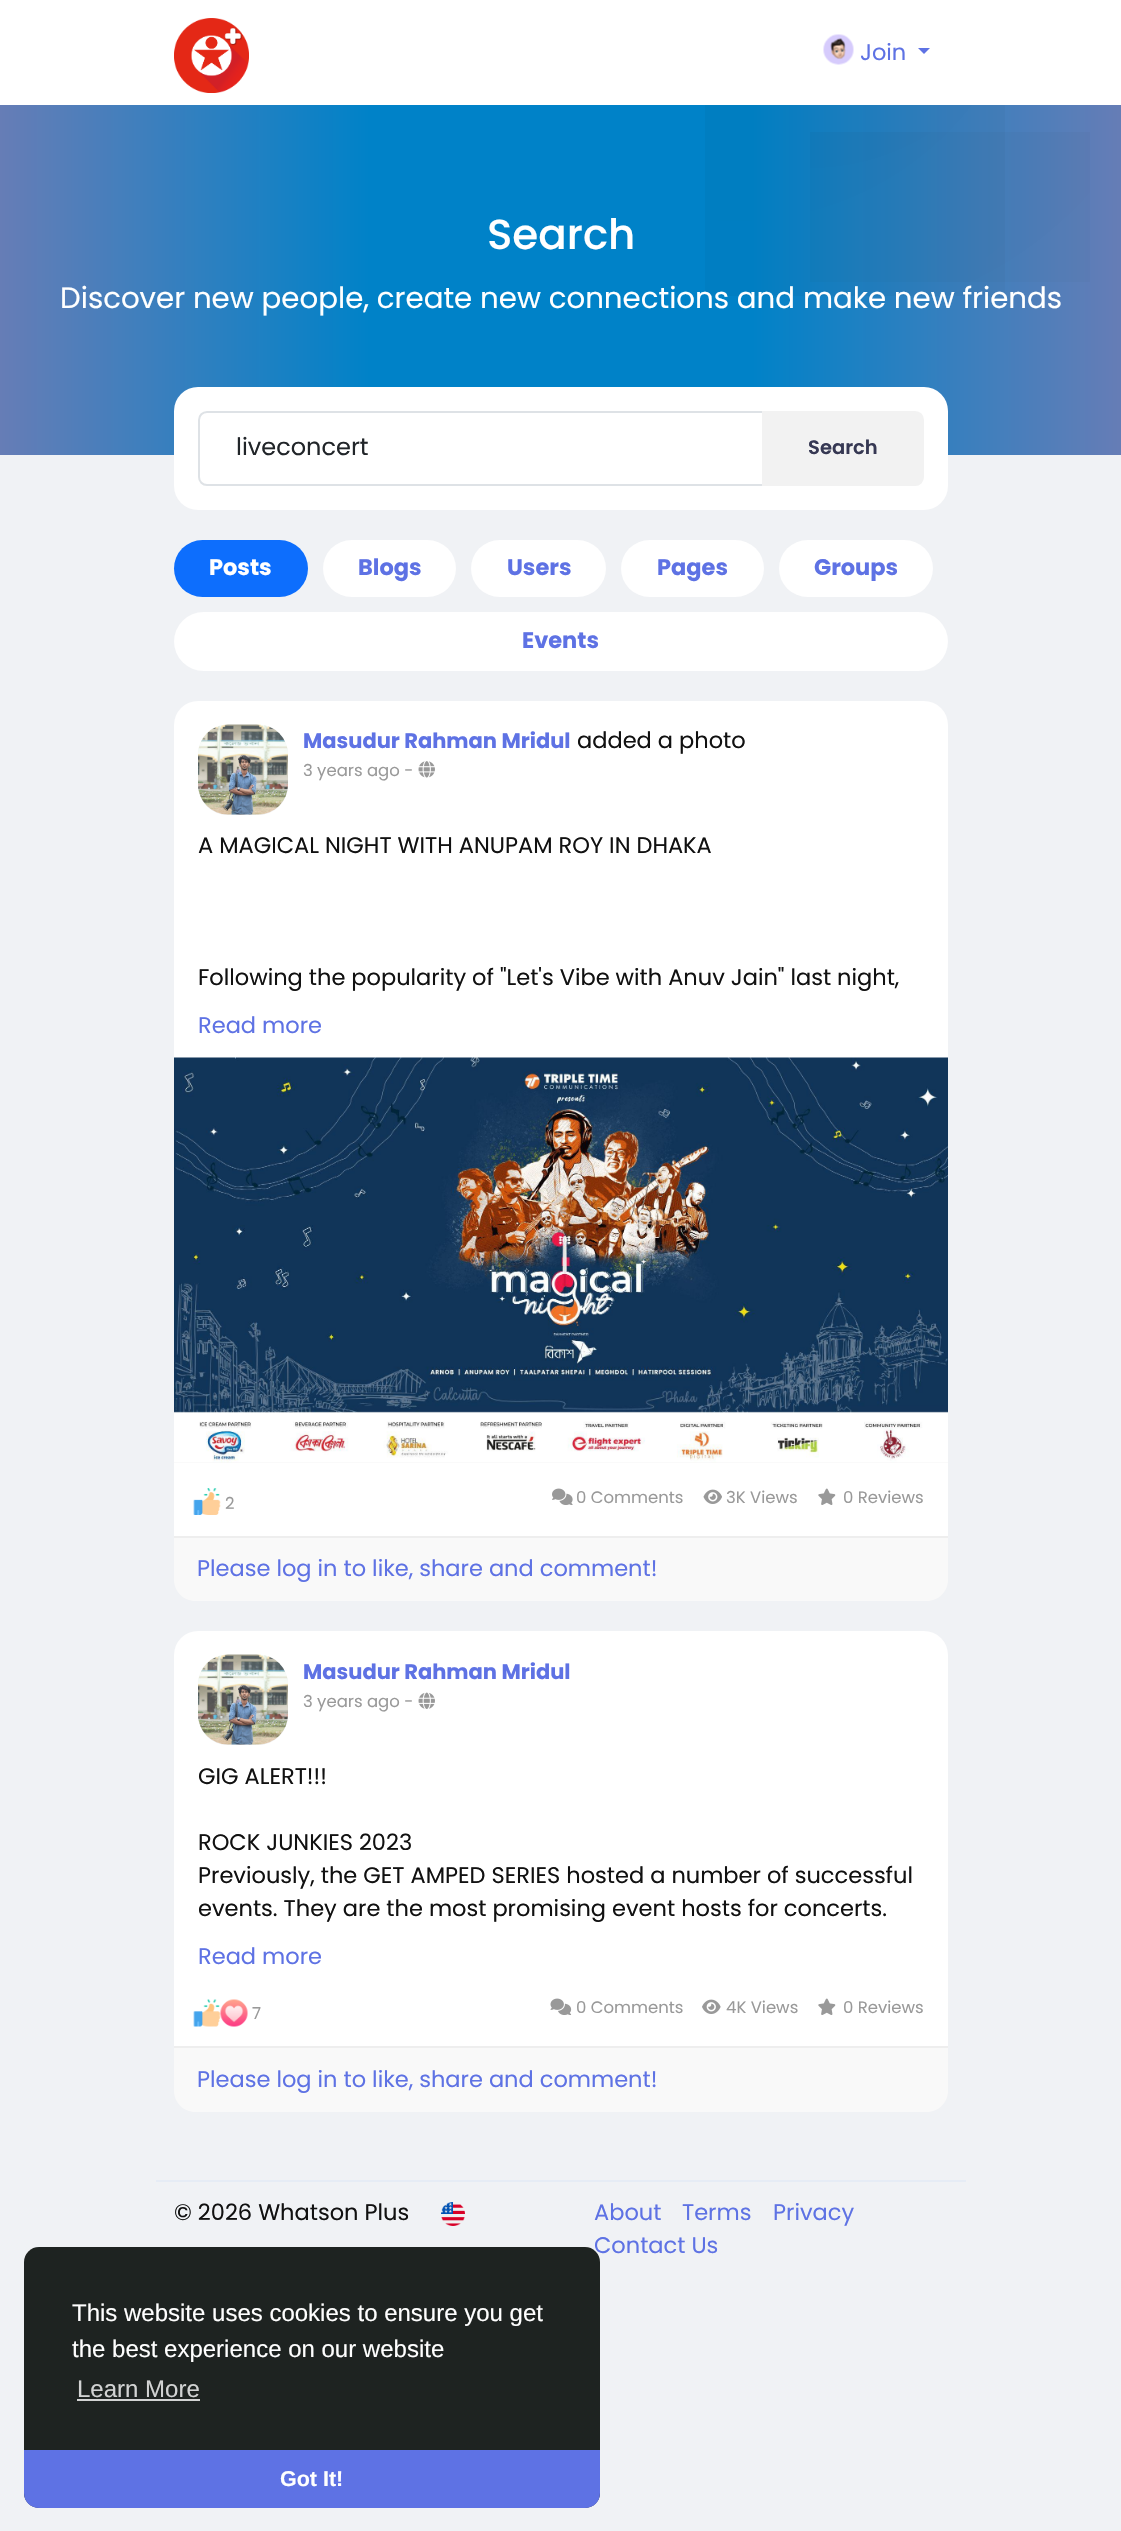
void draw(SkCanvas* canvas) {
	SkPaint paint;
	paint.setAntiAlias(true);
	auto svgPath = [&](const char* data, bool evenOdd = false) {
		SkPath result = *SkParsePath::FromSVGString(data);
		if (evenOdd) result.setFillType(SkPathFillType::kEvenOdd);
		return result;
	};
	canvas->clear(0xfff0f2f5);
	paint.setColor(0xffffffff);
	canvas->drawRect(SkRect::MakeXYWH(0, 0, 1121, 105), paint);
	canvas->drawImageRect(SkImages::DeferredFromEncodedData(SkData::MakeFromFileName("img1.png")), SkRect::MakeXYWH(174, 18, 75, 75), SkSamplingOptions());
	canvas->drawImageRect(SkImages::DeferredFromEncodedData(SkData::MakeFromFileName("img2.png")), SkRect::MakeXYWH(823, 34, 31, 31), SkSamplingOptions());
	SkFont f1(fontMgr->matchFamilyStyle("Poppins", SkFontStyle::Normal()), 22.5);
	f1.setSubpixel(true);
	paint.setColor(0xff5e72e4);
	canvas->drawString("Join", 860, 60, f1, paint);
	canvas->drawPath(svgPath("M918 48H930L924 54Z"), paint);
	{
		const SkColor colors[] = {0xff667db6, 0xff0082c8, 0xff0082c8, 0xff667db6};
		const float stops[] = {0, 0.33, 0.67, 1};
		const SkPoint ends[] = {{0, 280}, {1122, 280}};
		paint.setShader(SkGradientShader::MakeLinear(ends, colors, stops, 4, SkTileMode::kClamp));
		paint.setAlpha(255);
	}
	canvas->drawRect(SkRect::MakeXYWH(0, 105, 1121, 350), paint);
	{
		const SkColor colors[] = {0x08000000, 0x00000000};
		const float stops[] = {0, 1};
		paint.setShader(SkGradientShader::MakeRadial({810, -57}, 1200, colors, stops, 2, SkTileMode::kClamp));
		paint.setAlpha(255);
	}
	canvas->drawRect(SkRect::MakeXYWH(810, 132, 280, 150), paint);
	{
		const SkColor colors[] = {0x0a000000, 0x00000000};
		const float stops[] = {0, 1};
		paint.setShader(SkGradientShader::MakeRadial({735, -79}, 1200, colors, stops, 2, SkTileMode::kClamp));
		paint.setAlpha(255);
	}
	canvas->drawRect(SkRect::MakeXYWH(705, 105, 300, 191), paint);
	SkFont f2(fontMgr->matchFamilyStyle("Poppins", SkFontStyle(500, SkFontStyle::kNormal_Width, SkFontStyle::kUpright_Slant)), 42);
	f2.setSubpixel(true);
	paint.setShader(nullptr);
	paint.setColor(0xffffffff);
	canvas->drawString("Search", 487, 249, f2, paint);
	SkFont f3(fontMgr->matchFamilyStyle("Poppins", SkFontStyle::Normal()), 29.25);
	f3.setSubpixel(true);
	canvas->drawString("Discover new people, create new connections and make new friends", 60, 308, f3, paint);
	canvas->drawRoundRect(SkRect::MakeXYWH(174, 387, 774, 123), 24, 24, paint);
	paint.setStroke(true);
	paint.setStrokeWidth(2);
	paint.setColor(0xffdee2e6);
	canvas->drawPath(svgPath("M207 412H763V485H207C202.5 485 199 481.5 199 477V420C199 415.5 202.5 412 207 412Z"), paint);
	SkFont f4(fontMgr->matchFamilyStyle("Poppins", SkFontStyle::Normal()), 24);
	f4.setSubpixel(true);
	paint.setStroke(false);
	paint.setColor(0xff212529);
	canvas->drawString("liveconcert", 236, 455, f4, paint);
	paint.setColor(0xfff2f2f2);
	canvas->drawPath(svgPath("M763 412H915C919.5 412 923 415.5 923 420V477C923 481.5 919.5 485 915 485H763Z"), paint);
	paint.setStroke(true);
	canvas->drawPath(svgPath("M763 412H915C919.5 412 923 415.5 923 420V477C923 481.5 919.5 485 915 485H763Z"), paint);
	SkFont f5(fontMgr->matchFamilyStyle("Poppins", SkFontStyle(600, SkFontStyle::kNormal_Width, SkFontStyle::kUpright_Slant)), 19.5);
	f5.setSubpixel(true);
	paint.setStroke(false);
	paint.setColor(0xff363853);
	canvas->drawString("Search", 808, 454, f5, paint);
	paint.setColor(0xff0d6efd);
	canvas->drawRoundRect(SkRect::MakeXYWH(174, 540, 134, 57), 28.5, 28.5, paint);
	SkFont f6(fontMgr->matchFamilyStyle("Poppins", SkFontStyle::Bold()), 22.5);
	f6.setSubpixel(true);
	paint.setColor(0xffffffff);
	canvas->drawString("Posts", 209, 575, f6, paint);
	canvas->drawRoundRect(SkRect::MakeXYWH(323, 540, 133, 57), 28.5, 28.5, paint);
	paint.setColor(0xff5e72e4);
	canvas->drawString("Blogs", 358, 575, f6, paint);
	paint.setColor(0xffffffff);
	canvas->drawRoundRect(SkRect::MakeXYWH(471, 540, 135, 57), 28.5, 28.5, paint);
	paint.setColor(0xff5e72e4);
	canvas->drawString("Users", 507, 575, f6, paint);
	paint.setColor(0xffffffff);
	canvas->drawRoundRect(SkRect::MakeXYWH(621, 540, 143, 57), 28.5, 28.5, paint);
	paint.setColor(0xff5e72e4);
	canvas->drawString("Pages", 657, 575, f6, paint);
	paint.setColor(0xffffffff);
	canvas->drawRoundRect(SkRect::MakeXYWH(779, 540, 154, 57), 28.5, 28.5, paint);
	paint.setColor(0xff5e72e4);
	canvas->drawString("Groups", 814, 575, f6, paint);
	paint.setColor(0xffffffff);
	canvas->drawRoundRect(SkRect::MakeXYWH(174, 612, 774, 59), 29.5, 29.5, paint);
	paint.setColor(0xff5e72e4);
	canvas->drawString("Events", 522, 648, f6, paint);
	paint.setColor(0xffffffff);
	canvas->drawRoundRect(SkRect::MakeXYWH(174, 701, 774, 900), 24, 24, paint);
	paint.setColor(0xffeeeeee);
	canvas->drawRoundRect(SkRect::MakeXYWH(198, 725, 90, 90), 30, 30, paint);
	canvas->drawImageRect(SkImages::DeferredFromEncodedData(SkData::MakeFromFileName("img3.png")), SkRect::MakeXYWH(198, 724, 90, 91), SkSamplingOptions());
	SkFont f7(fontMgr->matchFamilyStyle("Poppins", SkFontStyle::Bold()), 21);
	f7.setSubpixel(true);
	paint.setColor(0xff5e72e4);
	canvas->drawString("Masudur Rahman Mridul", 303, 748, f7, paint);
	paint.setColor(0xff111111);
	canvas->drawString("added a photo", 577, 748, f1, paint);
	SkFont f8(fontMgr->matchFamilyStyle("Poppins", SkFontStyle::Normal()), 16.5);
	f8.setSubpixel(true);
	paint.setColor(0xff999999);
	canvas->drawString("3 years ago -", 303, 776, f8, paint);
	canvas->drawImageRect(SkImages::DeferredFromEncodedData(SkData::MakeFromFileName("img4.png")), SkRect::MakeXYWH(418, 761, 17, 17), SkSamplingOptions());
	paint.setColor(0xff111111);
	canvas->drawString("A MAGICAL NIGHT WITH ANUPAM ROY IN DHAKA", 198, 853, f1, paint);
	canvas->drawString("Following the popularity of \"Let's Vibe with Anuv Jain\" last night,", 198, 985, f1, paint);
	paint.setColor(0xff5e72e4);
	canvas->drawString("Read more", 198, 1033, f1, paint);
	paint.setColor(0xfff5f5f5);
	canvas->drawRect(SkRect::MakeXYWH(174, 1462, 774, 1), paint);
	canvas->drawImageRect(SkImages::DeferredFromEncodedData(SkData::MakeFromFileName("img5.png")), SkRect::MakeXYWH(174, 1057, 774, 406), SkSamplingOptions());
	canvas->drawImageRect(SkImages::DeferredFromEncodedData(SkData::MakeFromFileName("img6.png")), SkRect::MakeXYWH(193, 1488, 28, 27), SkSamplingOptions());
	paint.setColor(0xff999999);
	canvas->drawString("2", 225, 1509, f8, paint);
	canvas->drawImageRect(SkImages::DeferredFromEncodedData(SkData::MakeFromFileName("img7.png")), SkRect::MakeXYWH(552, 1488, 21, 17), SkSamplingOptions());
	canvas->drawString("0 Comments", 576, 1503, f8, paint);
	canvas->drawImageRect(SkImages::DeferredFromEncodedData(SkData::MakeFromFileName("img8.png")), SkRect::MakeXYWH(703, 1489, 19, 15), SkSamplingOptions());
	canvas->drawString("3K Views", 726, 1503, f8, paint);
	canvas->drawImageRect(SkImages::DeferredFromEncodedData(SkData::MakeFromFileName("img9.png")), SkRect::MakeXYWH(818, 1488, 18, 17), SkSamplingOptions());
	canvas->drawString("0 Reviews", 843, 1503, f8, paint);
	paint.setColor(0xfff9f9f9);
	canvas->drawPath(svgPath("M174 1536H948V1580C948 1591.5 938.5 1601 927 1601H195C183.5 1601 174 1591.5 174 1580Z"), paint);
	paint.setColor(0xffeeeeee);
	canvas->drawRect(SkRect::MakeXYWH(174, 1536, 774, 2), paint);
	paint.setColor(0xff5e72e4);
	canvas->drawString("Please log in to like, share and comment!", 197, 1576, f1, paint);
	paint.setColor(0xffffffff);
	canvas->drawRoundRect(SkRect::MakeXYWH(174, 1631, 774, 481), 24, 24, paint);
	paint.setColor(0xffeeeeee);
	canvas->drawRoundRect(SkRect::MakeXYWH(198, 1655, 90, 90), 30, 30, paint);
	canvas->drawImageRect(SkImages::DeferredFromEncodedData(SkData::MakeFromFileName("img3.png")), SkRect::MakeXYWH(198, 1654, 90, 91), SkSamplingOptions());
	paint.setColor(0xff5e72e4);
	canvas->drawString("Masudur Rahman Mridul", 303, 1679, f7, paint);
	paint.setColor(0xff999999);
	canvas->drawString("3 years ago -", 303, 1707, f8, paint);
	canvas->drawImageRect(SkImages::DeferredFromEncodedData(SkData::MakeFromFileName("img10.png")), SkRect::MakeXYWH(418, 1692, 17, 17), SkSamplingOptions());
	paint.setColor(0xff111111);
	canvas->drawString("GIG ALERT!!!", 198, 1784, f1, paint);
	canvas->drawString("ROCK JUNKIES 2023", 198, 1850, f1, paint);
	canvas->drawString("Previously, the GET AMPED SERIES hosted a number of successful", 198, 1883, f1, paint);
	canvas->drawString("events. They are the most promising event hosts for concerts.", 198, 1916, f1, paint);
	paint.setColor(0xff5e72e4);
	canvas->drawString("Read more", 198, 1964, f1, paint);
	canvas->drawImageRect(SkImages::DeferredFromEncodedData(SkData::MakeFromFileName("img11.png")), SkRect::MakeXYWH(193, 1999, 28, 28), SkSamplingOptions());
	canvas->drawImageRect(SkImages::DeferredFromEncodedData(SkData::MakeFromFileName("img12.png")), SkRect::MakeXYWH(220, 1999, 28, 28), SkSamplingOptions());
	paint.setColor(0xff999999);
	canvas->drawString("7", 252, 2019, f8, paint);
	canvas->drawImageRect(SkImages::DeferredFromEncodedData(SkData::MakeFromFileName("img13.png")), SkRect::MakeXYWH(550, 1998, 22, 17), SkSamplingOptions());
	canvas->drawString("0 Comments", 576, 2013, f8, paint);
	canvas->drawImageRect(SkImages::DeferredFromEncodedData(SkData::MakeFromFileName("img14.png")), SkRect::MakeXYWH(702, 1999, 19, 15), SkSamplingOptions());
	canvas->drawString("4K Views", 726, 2013, f8, paint);
	canvas->drawImageRect(SkImages::DeferredFromEncodedData(SkData::MakeFromFileName("img9.png")), SkRect::MakeXYWH(818, 1998, 18, 17), SkSamplingOptions());
	canvas->drawString("0 Reviews", 843, 2013, f8, paint);
	paint.setColor(0xfff9f9f9);
	canvas->drawPath(svgPath("M174 2046H948V2091C948 2102.5 938.5 2112 927 2112H195C183.5 2112 174 2102.5 174 2091Z"), paint);
	paint.setColor(0xffeeeeee);
	canvas->drawRect(SkRect::MakeXYWH(174, 2046, 774, 2), paint);
	paint.setColor(0xff5e72e4);
	canvas->drawString("Please log in to like, share and comment!", 197, 2087, f1, paint);
	paint.setColor(0xffe6ecf5);
	canvas->drawRect(SkRect::MakeXYWH(156, 2180, 810, 2), paint);
	paint.setColor(0xff111111);
	canvas->drawString("© 2026 Whatson Plus", 174, 2220, f1, paint);
	canvas->drawImageRect(SkImages::DeferredFromEncodedData(SkData::MakeFromFileName("img15.png")), SkRect::MakeXYWH(441, 2202, 24, 24), SkSamplingOptions());
	paint.setColor(0xff5e72e4);
	canvas->drawString("About", 594, 2220, f1, paint);
	canvas->drawString("Terms", 682, 2220, f1, paint);
	canvas->drawString("Privacy", 773, 2220, f1, paint);
	canvas->drawString("Contact Us", 594, 2253, f1, paint);
	paint.setColor(0xff1e2321);
	canvas->drawRoundRect(SkRect::MakeXYWH(24, 2247, 576, 261), 15, 15, paint);
	SkFont f9(fontMgr->matchFamilyStyle("Liberation Sans", SkFontStyle::Normal()), 24);
	f9.setSubpixel(true);
	paint.setColor(0xffffffff);
	canvas->drawString("This website uses cookies to ensure you get", 72, 2321, f9, paint);
	canvas->drawString("the best experience on our website", 72, 2357, f9, paint);
	paint.setColor(0xffd2d3d3);
	canvas->drawString("Learn More", 77, 2397, f9, paint);
	canvas->drawRect(SkRect::MakeXYWH(77, 2399, 123, 2), paint);
	paint.setColor(0xff5e72e4);
	canvas->drawPath(svgPath("M24 2450H600V2493C600 2501.5 593.5 2508 585 2508H39C30.5 2508 24 2501.5 24 2493Z"), paint);
	SkFont f10(fontMgr->matchFamilyStyle("Liberation Sans", SkFontStyle::Bold()), 21.5);
	f10.setSubpixel(true);
	paint.setColor(0xffffffff);
	canvas->drawString("Got It!", 280, 2486, f10, paint);
}
